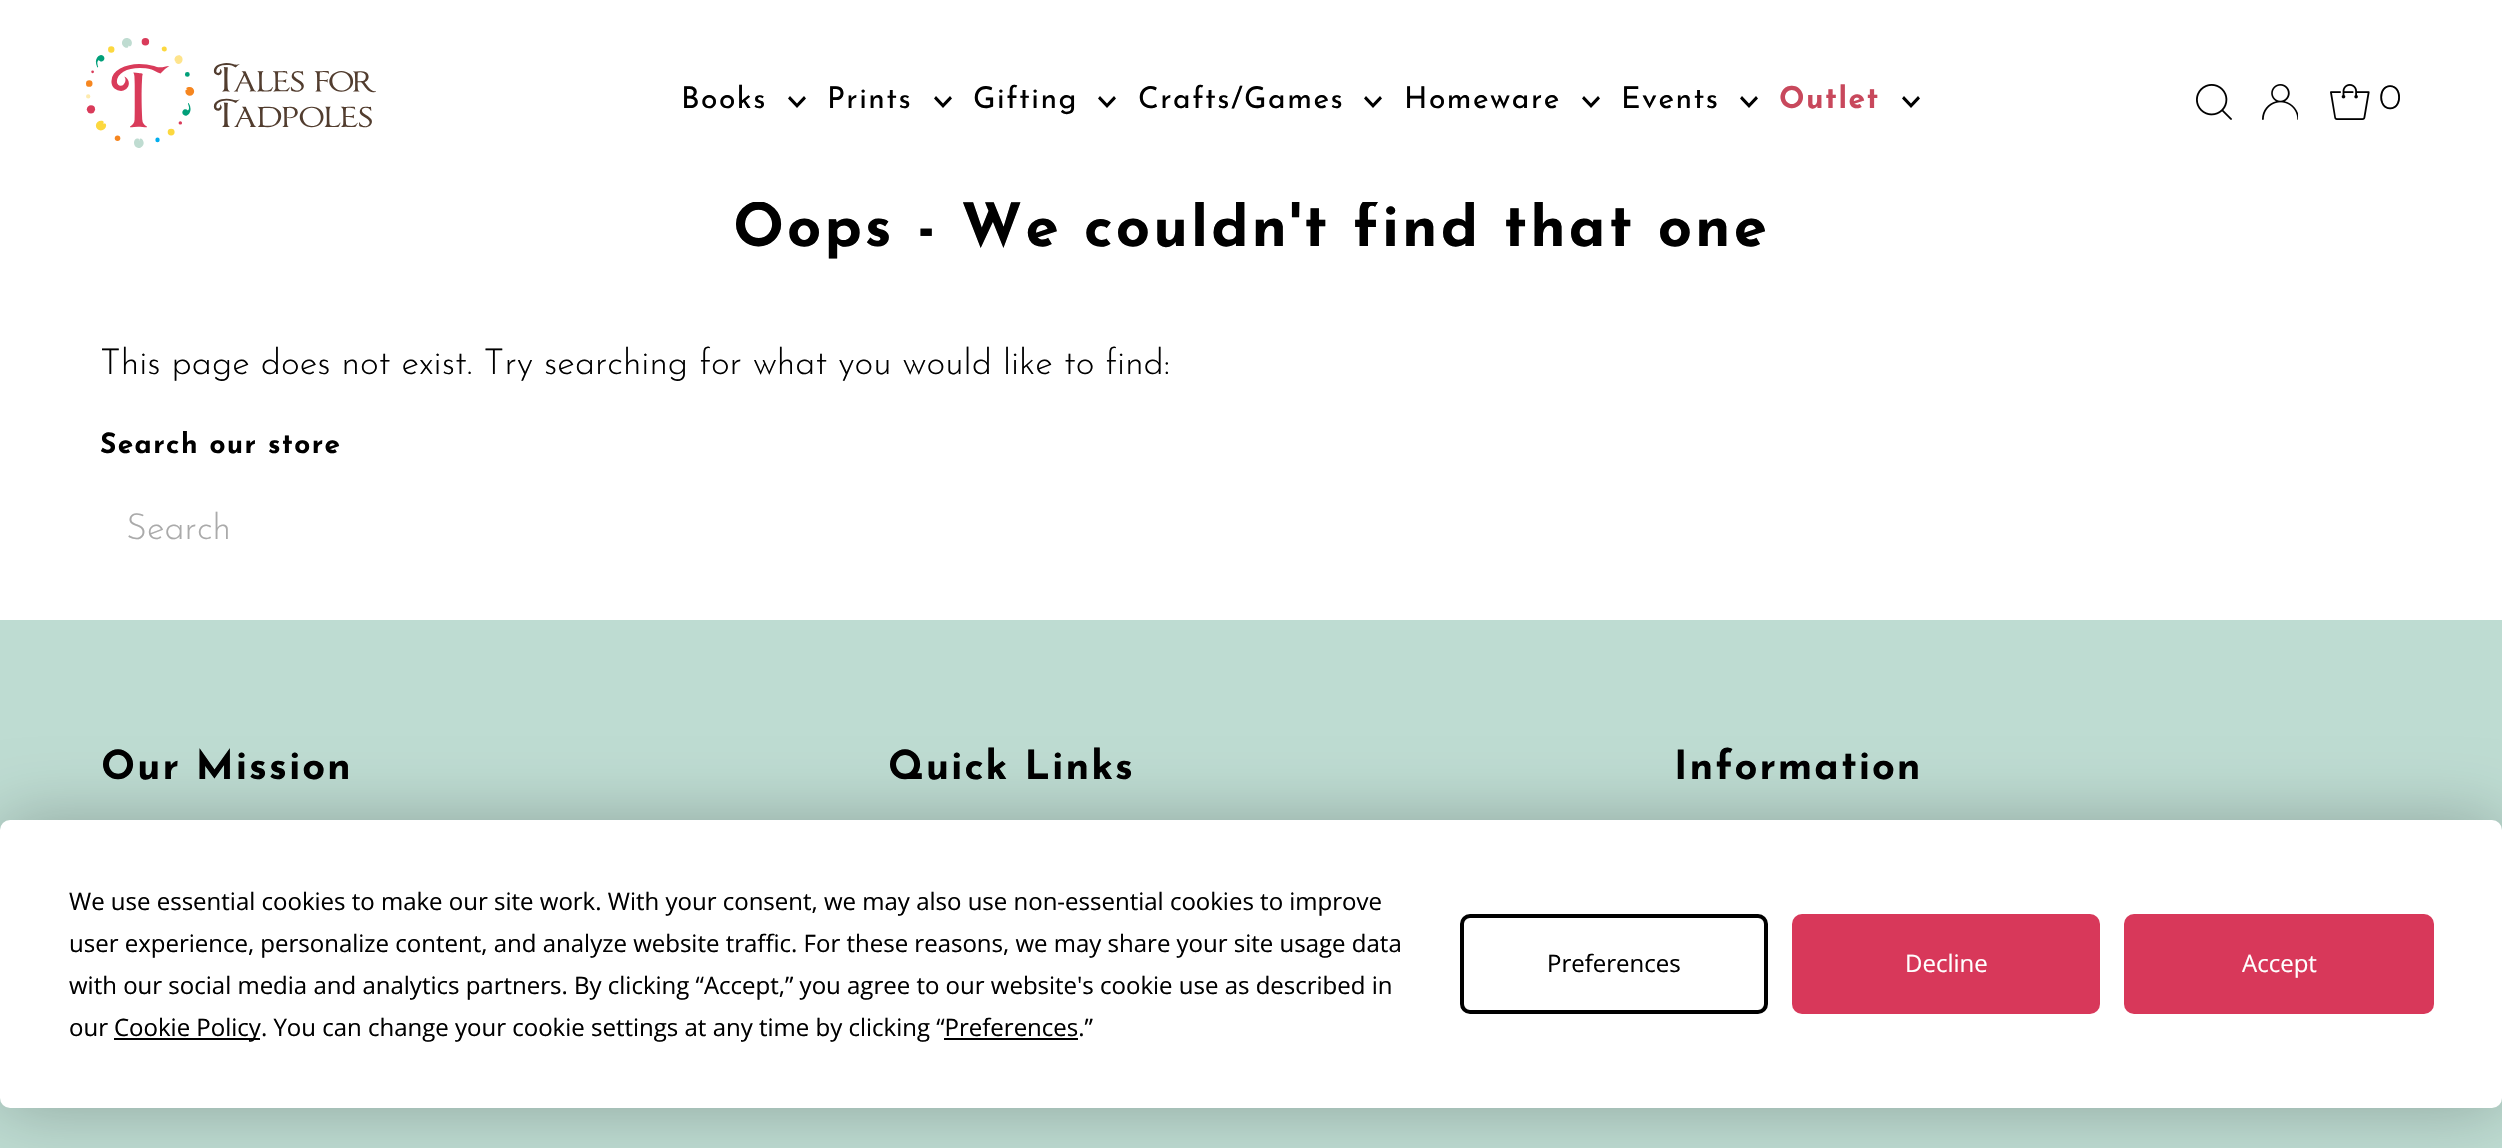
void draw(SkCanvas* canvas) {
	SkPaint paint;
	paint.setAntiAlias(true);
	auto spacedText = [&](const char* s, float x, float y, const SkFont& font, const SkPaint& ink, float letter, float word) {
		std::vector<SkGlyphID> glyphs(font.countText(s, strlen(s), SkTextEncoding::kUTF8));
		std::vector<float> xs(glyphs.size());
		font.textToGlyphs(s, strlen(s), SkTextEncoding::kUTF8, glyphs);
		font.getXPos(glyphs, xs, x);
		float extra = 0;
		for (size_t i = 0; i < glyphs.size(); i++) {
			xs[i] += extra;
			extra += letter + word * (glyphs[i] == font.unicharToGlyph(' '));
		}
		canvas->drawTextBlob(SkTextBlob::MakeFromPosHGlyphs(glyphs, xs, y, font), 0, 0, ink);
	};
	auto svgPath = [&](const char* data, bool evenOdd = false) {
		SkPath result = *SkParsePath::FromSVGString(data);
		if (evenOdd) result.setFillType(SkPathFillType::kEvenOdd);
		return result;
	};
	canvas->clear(0xffffffff);
	SkFont f1(fontMgr->matchFamilyStyle("Josefin Sans", SkFontStyle::Bold()), 60);
	f1.setSubpixel(true);
	paint.setColor(0xff000000);
	spacedText("Oops - We couldn't find that one", 733, 246, f1, paint, 3, 0);
	paint.setColor(0xffffffff);
	canvas->drawRect(SkRect::MakeXYWH(753, 198, 790, 4), paint);
	canvas->drawImageRect(SkImages::DeferredFromEncodedData(SkData::MakeFromFileName("img1.png")), SkRect::MakeXYWH(86, 38, 290, 110), SkSamplingOptions());
	SkFont f2(fontMgr->matchFamilyStyle("Josefin Sans", SkFontStyle::Normal()), 30);
	f2.setSubpixel(true);
	paint.setColor(0xff000000);
	spacedText("Books", 681, 108, f2, paint, 1.5, 0);
	canvas->drawPath(svgPath("M804 96L797 103.5L790 96L788 98.5L797 108L806 98.5Z"), paint);
	spacedText("Prints", 827, 108, f2, paint, 1.5, 0);
	canvas->drawPath(svgPath("M950 96L943 103.5L936 96L934 98.5L943 108L952 98.5Z"), paint);
	spacedText("Gifting", 973, 108, f2, paint, 1.5, 0);
	canvas->drawPath(svgPath("M1114 96L1107 103.5L1100 96L1098 98.5L1107 108L1116 98.5Z"), paint);
	spacedText("Crafts/Games", 1138, 108, f2, paint, 1.5, 0);
	canvas->drawPath(svgPath("M1380 96L1373 103.5L1366 96L1364 98.5L1373 108L1382 98.5Z"), paint);
	spacedText("Homeware", 1404, 108, f2, paint, 1.5, 0);
	canvas->drawPath(svgPath("M1598 96L1591 103.5L1584 96L1582 98.5L1591 108L1600 98.5Z"), paint);
	spacedText("Events", 1621, 108, f2, paint, 1.5, 0);
	canvas->drawPath(svgPath("M1756 96L1749 103.5L1742 96L1740 98.5L1749 108L1758 98.5Z"), paint);
	SkFont f3(fontMgr->matchFamilyStyle("Josefin Sans", SkFontStyle::Bold()), 30);
	f3.setSubpixel(true);
	paint.setColor(0xffc8485c);
	spacedText("Outlet", 1779, 108, f3, paint, 1.5, 0);
	paint.setColor(0xff000000);
	canvas->drawPath(svgPath("M1918 96L1911 103.5L1904 96L1902 98.5L1911 108L1920 98.5Z"), paint);
	canvas->drawImageRect(SkImages::DeferredFromEncodedData(SkData::MakeFromFileName("img2.png")), SkRect::MakeXYWH(2196, 84, 36, 36), SkSamplingOptions());
	canvas->drawImageRect(SkImages::DeferredFromEncodedData(SkData::MakeFromFileName("img3.png")), SkRect::MakeXYWH(2262, 84, 36, 36), SkSamplingOptions());
	canvas->drawImageRect(SkImages::DeferredFromEncodedData(SkData::MakeFromFileName("img4.png")), SkRect::MakeXYWH(2330, 84, 40, 36), SkSamplingOptions());
	SkFont f4(fontMgr->matchFamilyStyle("Josefin Sans", SkFontStyle(300, SkFontStyle::kNormal_Width, SkFontStyle::kUpright_Slant)), 36);
	f4.setSubpixel(true);
	canvas->drawString("0", 2379, 109, f4, paint);
	canvas->drawString("This page does not exist. Try searching for what you would like to find:", 100, 374, f4, paint);
	SkFont f5(fontMgr->matchFamilyStyle("Josefin Sans", SkFontStyle::Bold()), 28);
	f5.setSubpixel(true);
	spacedText("Search our store", 100, 453, f5, paint, 1.4, 0);
	paint.setColor(0xffaaaaaa);
	canvas->drawString("Search", 126, 539, f4, paint);
	paint.setColor(0xffbedcd2);
	canvas->drawRect(SkRect::MakeXYWH(0, 620, 2502, 528), paint);
	SkFont f6(fontMgr->matchFamilyStyle("Josefin Sans", SkFontStyle::Bold()), 40);
	f6.setSubpixel(true);
	paint.setColor(0xff000000);
	spacedText("Our Mission", 101, 779, f6, paint, 2, 0);
	spacedText("Quick Links", 888, 779, f6, paint, 2, 0);
	spacedText("Information", 1674, 779, f6, paint, 2, 0);
	paint.setColor(0x40000000);
	paint.setMaskFilter(SkMaskFilter::MakeBlur(kNormal_SkBlurStyle, 35));
	canvas->drawRoundRect(SkRect::MakeXYWH(0, 820, 2502, 288), 10, 10, paint);
	paint.setMaskFilter(nullptr);
	paint.setColor(0xffffffff);
	canvas->drawRoundRect(SkRect::MakeXYWH(0, 820, 2502, 288), 10, 10, paint);
	SkFont f7(fontMgr->matchFamilyStyle("Open Sans", SkFontStyle::Normal()), 24);
	f7.setSubpixel(true);
	paint.setColor(0xff000000);
	canvas->drawString("We use essential cookies to make our site work. With your consent, we may also use non-essential cookies to improve", 69, 910, f7, paint);
	canvas->drawString("user experience, personalize content, and analyze website traffic. For these reasons, we may share your site usage data", 69, 952, f7, paint);
	canvas->drawString("with our social media and analytics partners. By clicking “Accept,” you agree to our website's cookie use as described in", 69, 994, f7, paint);
	canvas->drawString("our", 69, 1036, f7, paint);
	canvas->drawRect(SkRect::MakeXYWH(114, 1038, 146, 2), paint);
	canvas->drawString("Cookie Policy. You can change your cookie settings at any time by clicking “Preferences.”", 114, 1036, f7, paint);
	canvas->drawRect(SkRect::MakeXYWH(944, 1038, 134, 2), paint);
	paint.setStroke(true);
	paint.setStrokeWidth(4);
	canvas->drawRoundRect(SkRect::MakeXYWH(1462, 916, 304, 96), 8, 8, paint);
	paint.setStroke(false);
	canvas->drawString("Preferences", 1547, 972, f7, paint);
	paint.setColor(0xffd8385a);
	canvas->drawRoundRect(SkRect::MakeXYWH(1792, 914, 308, 100), 10, 10, paint);
	paint.setColor(0xffffffff);
	canvas->drawString("Decline", 1905, 972, f7, paint);
	paint.setColor(0xffd8385a);
	canvas->drawRoundRect(SkRect::MakeXYWH(2124, 914, 310, 100), 10, 10, paint);
	paint.setColor(0xffffffff);
	canvas->drawString("Accept", 2242, 972, f7, paint);
}
